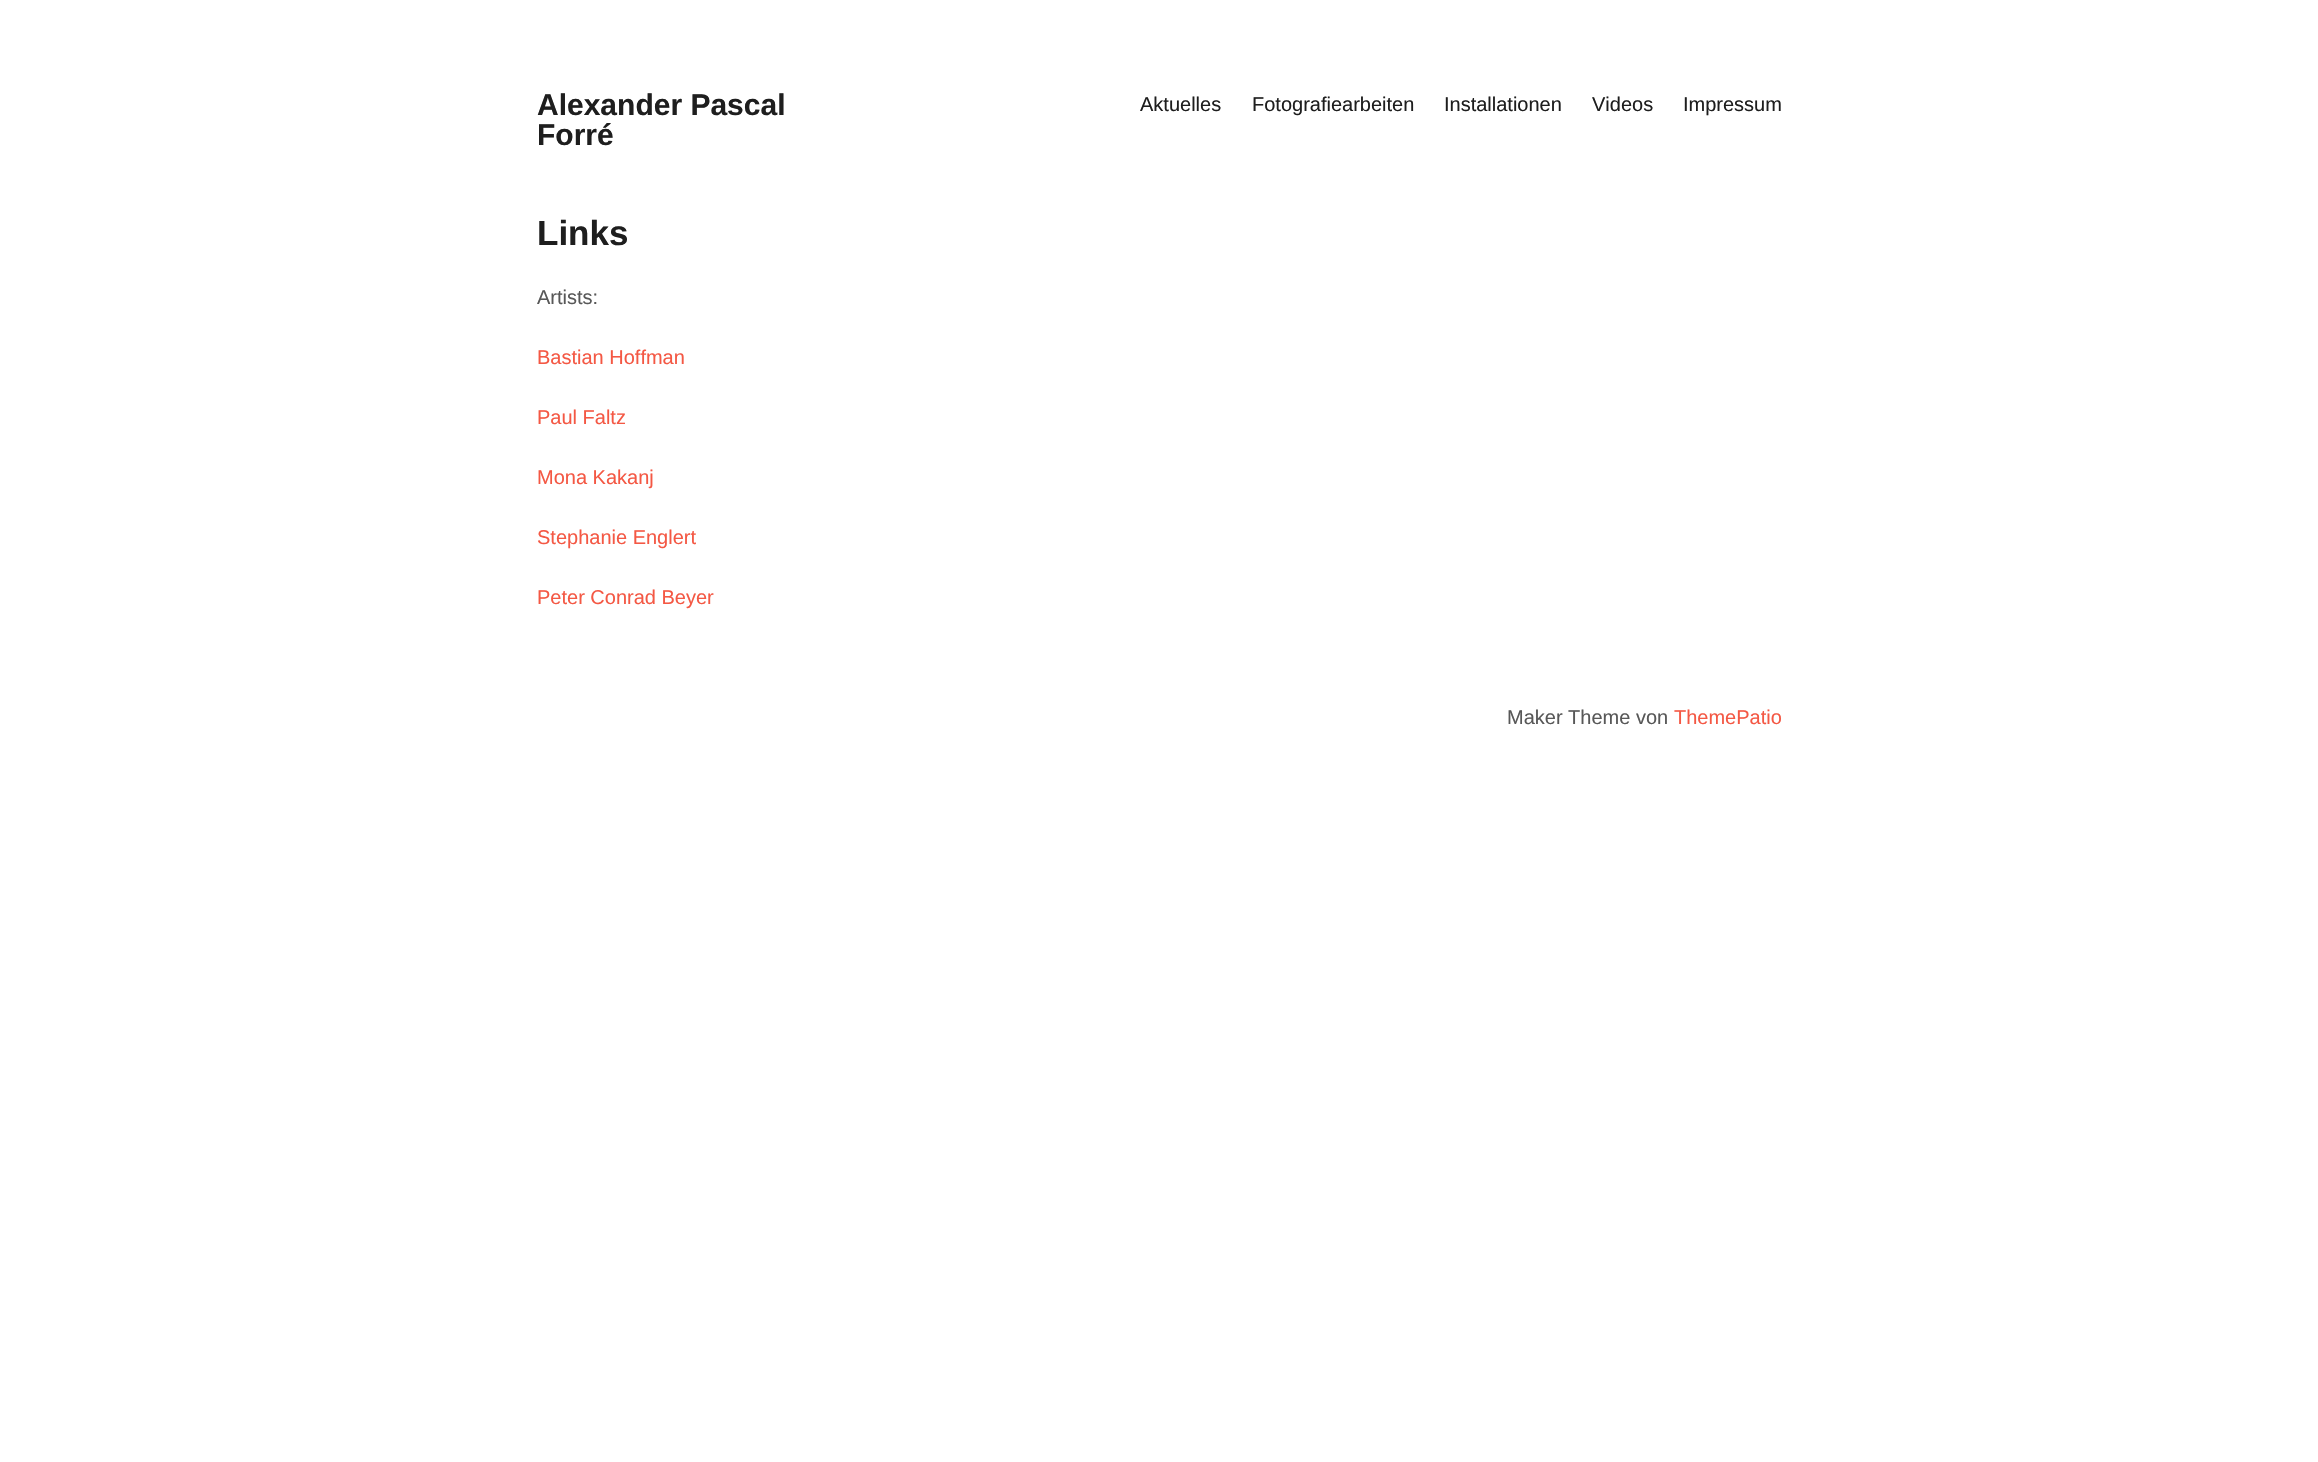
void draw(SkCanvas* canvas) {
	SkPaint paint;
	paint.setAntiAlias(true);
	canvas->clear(0xffffffff);
	SkFont f1(fontMgr->matchFamilyStyle("Liberation Sans", SkFontStyle::Bold()), 30);
	f1.setSubpixel(true);
	paint.setColor(0xff1e1e1e);
	canvas->drawString("Alexander Pascal", 537, 115, f1, paint);
	canvas->drawString("Forré", 537, 145, f1, paint);
	SkFont f2(fontMgr->matchFamilyStyle("Liberation Sans", SkFontStyle::Normal()), 20);
	f2.setSubpixel(true);
	canvas->drawString("Aktuelles", 1140, 111, f2, paint);
	canvas->drawString("Fotografiearbeiten", 1252, 111, f2, paint);
	canvas->drawString("Installationen", 1444, 111, f2, paint);
	canvas->drawString("Videos", 1592, 111, f2, paint);
	canvas->drawString("Impressum", 1683, 111, f2, paint);
	SkFont f3(fontMgr->matchFamilyStyle("Liberation Sans", SkFontStyle::Bold()), 35);
	f3.setSubpixel(true);
	canvas->drawString("Links", 537, 245, f3, paint);
	paint.setColor(0xff585858);
	canvas->drawString("Artists:", 537, 304, f2, paint);
	paint.setColor(0xfff45844);
	canvas->drawString("Bastian Hoffman", 537, 364, f2, paint);
	canvas->drawString("Paul Faltz", 537, 424, f2, paint);
	canvas->drawString("Mona Kakanj", 537, 484, f2, paint);
	canvas->drawString("Stephanie Englert", 537, 544, f2, paint);
	canvas->drawString("Peter Conrad Beyer", 537, 604, f2, paint);
	paint.setColor(0xff585858);
	canvas->drawString("Maker Theme von", 1507, 724, f2, paint);
	paint.setColor(0xfff45844);
	canvas->drawString("ThemePatio", 1674, 724, f2, paint);
}
